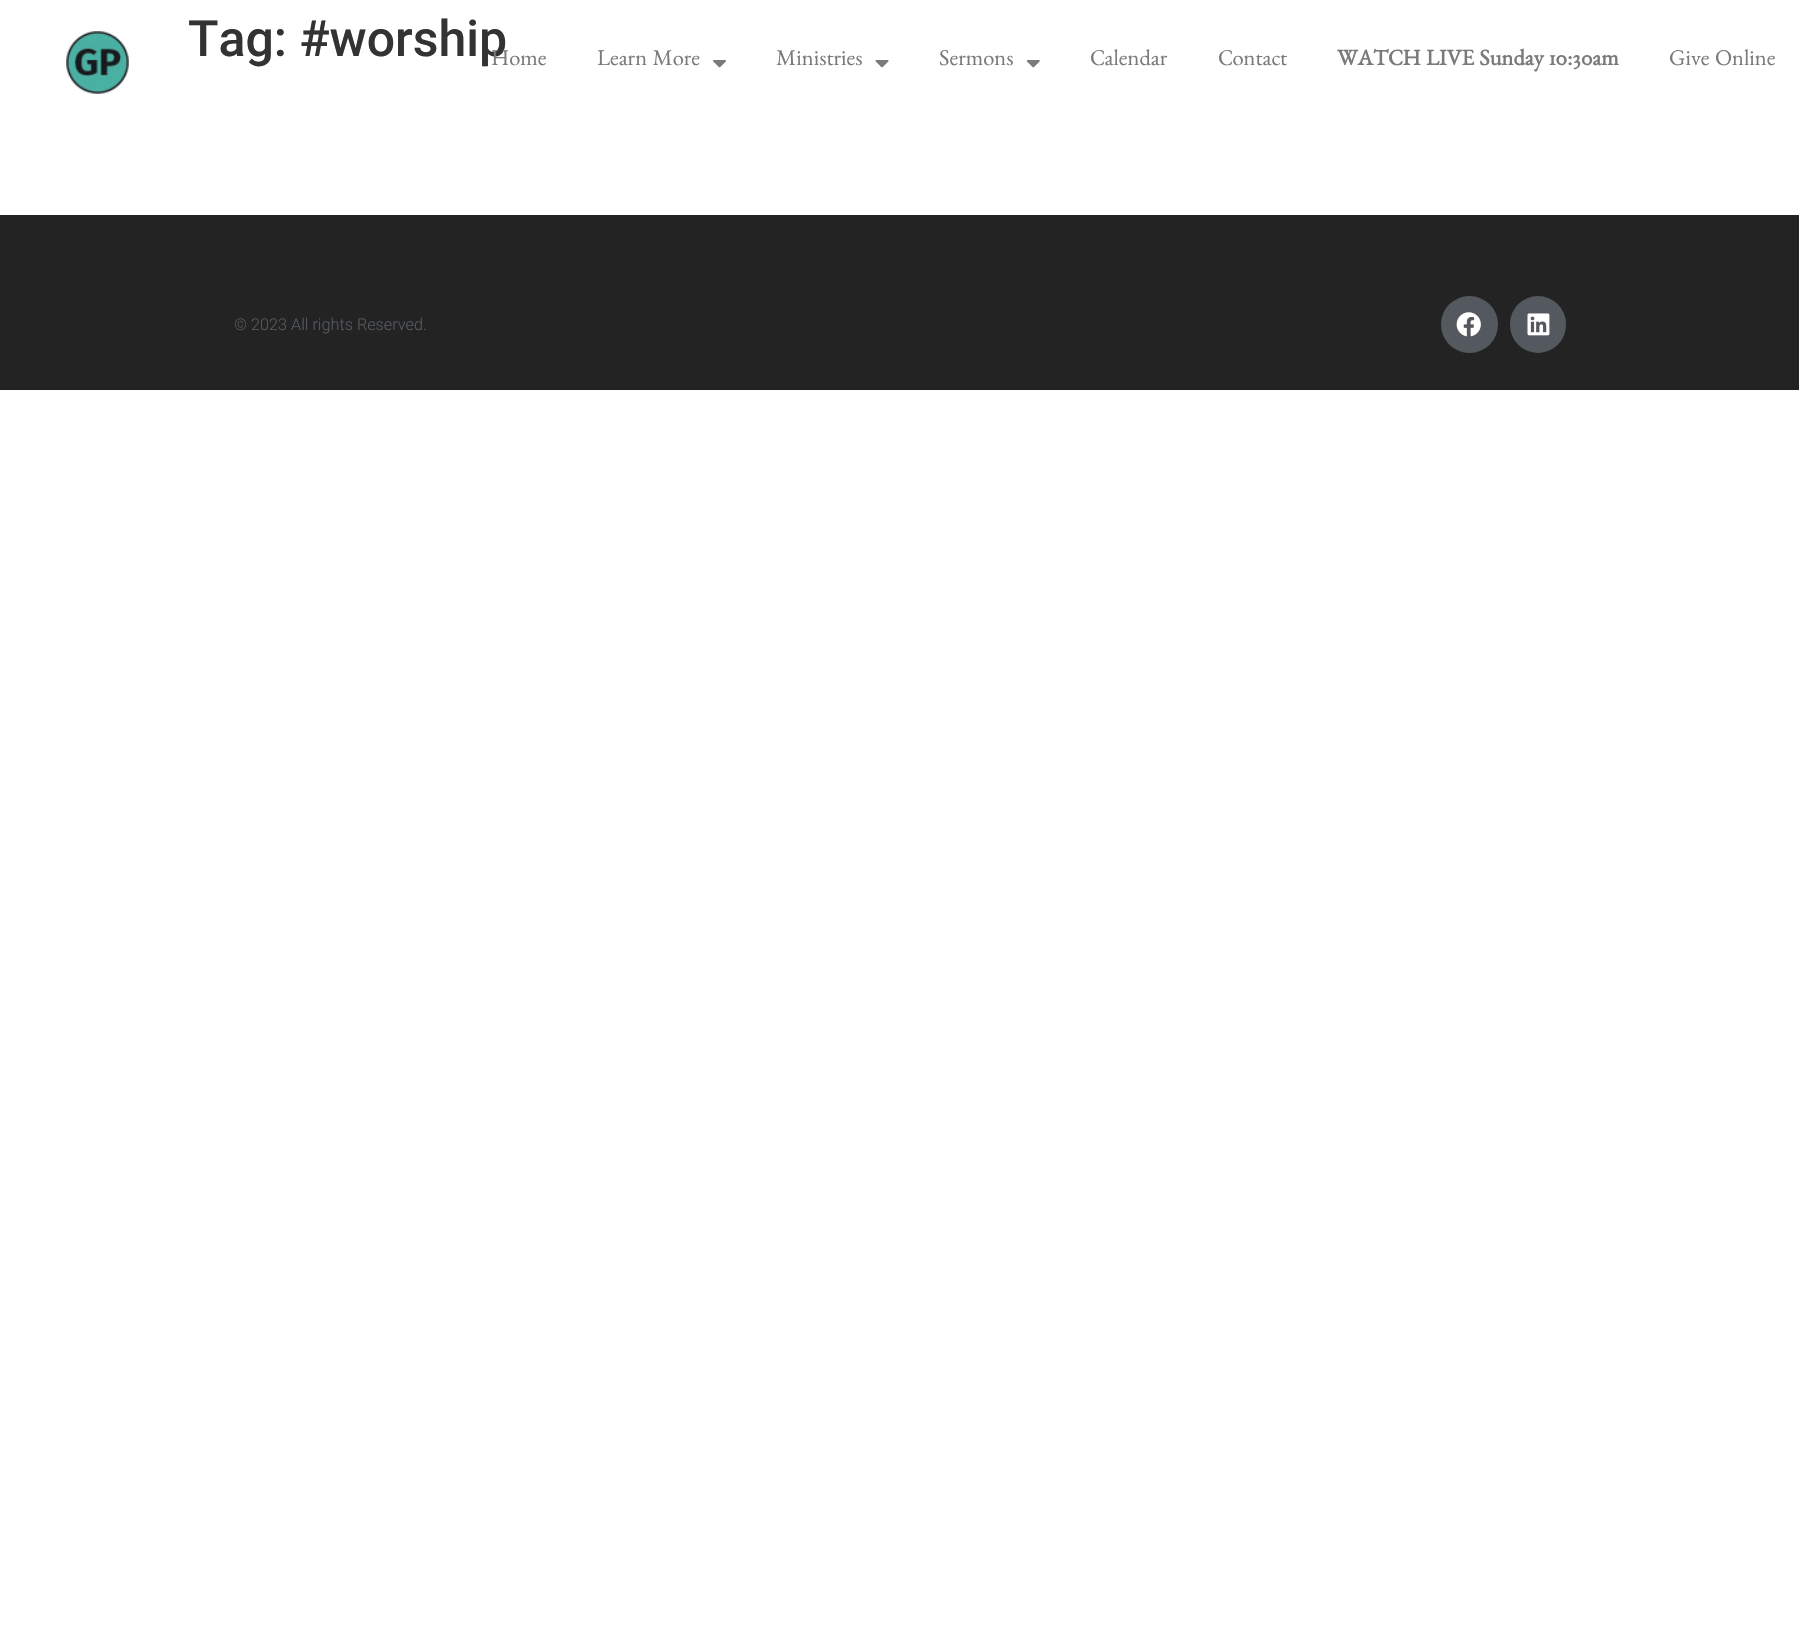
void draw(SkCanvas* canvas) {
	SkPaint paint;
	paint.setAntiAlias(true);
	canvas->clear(0xffffffff);
	SkFont f1(fontMgr->matchFamilyStyle("Roboto", SkFontStyle(500, SkFontStyle::kNormal_Width, SkFontStyle::kUpright_Slant)), 50);
	f1.setSubpixel(true);
	paint.setColor(0xff333333);
	canvas->drawString("Tag: #worship", 188, 56, f1, paint);
	canvas->drawImageRect(SkImages::DeferredFromEncodedData(SkData::MakeFromFileName("img1.png")), SkRect::MakeXYWH(66, 31, 63, 63), SkSamplingOptions());
	SkFont f2(fontMgr->matchFamilyStyle("Benne", SkFontStyle::Normal()), 22.5);
	f2.setSubpixel(true);
	paint.setColor(0xff7a7a7a);
	canvas->drawString("Home", 491, 65, f2, paint);
	canvas->drawString("Learn More", 597, 65, f2, paint);
	canvas->drawImageRect(SkImages::DeferredFromEncodedData(SkData::MakeFromFileName("img2.png")), SkRect::MakeXYWH(713, 60, 13, 8), SkSamplingOptions());
	canvas->drawString("Ministries", 776, 65, f2, paint);
	canvas->drawImageRect(SkImages::DeferredFromEncodedData(SkData::MakeFromFileName("img3.png")), SkRect::MakeXYWH(875, 60, 14, 8), SkSamplingOptions());
	canvas->drawString("Sermons", 939, 65, f2, paint);
	canvas->drawImageRect(SkImages::DeferredFromEncodedData(SkData::MakeFromFileName("img4.png")), SkRect::MakeXYWH(1026, 60, 14, 8), SkSamplingOptions());
	canvas->drawString("Calendar", 1090, 65, f2, paint);
	canvas->drawString("Contact", 1218, 65, f2, paint);
	SkFont f3(fontMgr->matchFamilyStyle("Benne", SkFontStyle::Bold()), 22.5);
	f3.setSubpixel(true);
	canvas->drawString("WATCH LIVE Sunday 10:30am", 1337, 65, f3, paint);
	canvas->drawString("Give Online", 1669, 65, f2, paint);
	paint.setColor(0xff232323);
	canvas->drawRect(SkRect::MakeXYWH(0, 215, 1799, 175), paint);
	SkFont f4(fontMgr->matchFamilyStyle("Roboto", SkFontStyle(300, SkFontStyle::kNormal_Width, SkFontStyle::kUpright_Slant)), 16.25);
	f4.setSubpixel(true);
	paint.setColor(0xff54595f);
	canvas->drawString("© 2023 All rights Reserved.", 234, 330, f4, paint);
	canvas->drawCircle(1469.5, 324.5, 28.5, paint);
	canvas->drawImageRect(SkImages::DeferredFromEncodedData(SkData::MakeFromFileName("img5.png")), SkRect::MakeXYWH(1456, 312, 25, 25), SkSamplingOptions());
	canvas->drawRoundRect(SkRect::MakeXYWH(1510, 296, 56, 57), 28, 28, paint);
	canvas->drawImageRect(SkImages::DeferredFromEncodedData(SkData::MakeFromFileName("img6.png")), SkRect::MakeXYWH(1527, 313, 23, 23), SkSamplingOptions());
}
